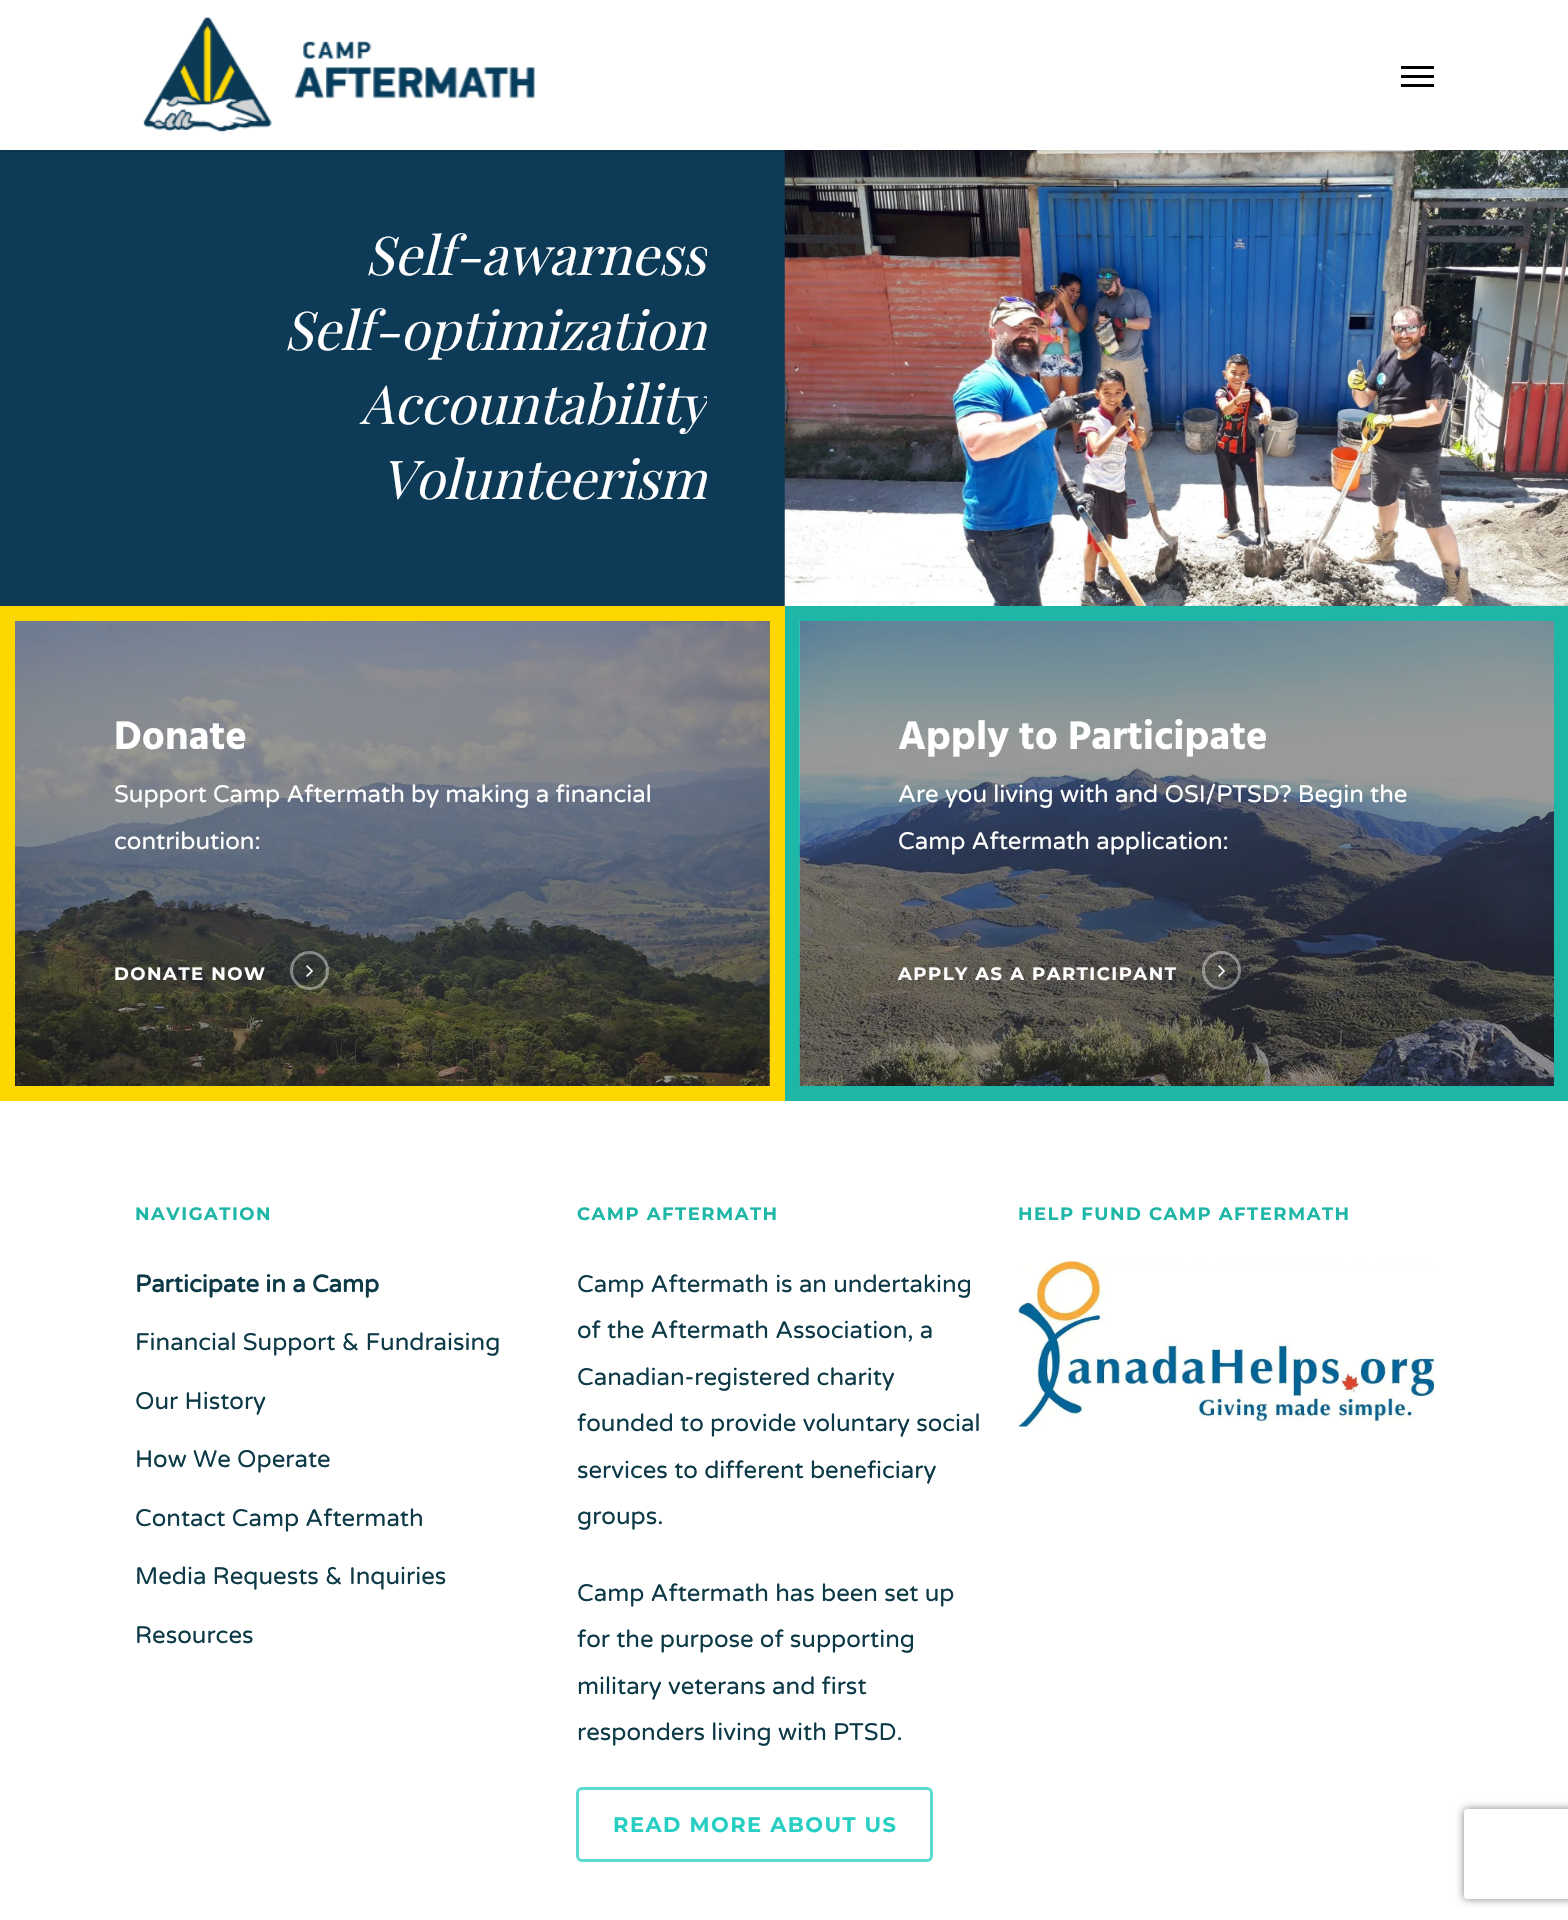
void draw(SkCanvas* canvas) {
	SkPaint paint;
	paint.setAntiAlias(true);
	auto spacedText = [&](const char* s, float x, float y, const SkFont& font, const SkPaint& ink, float letter, float word) {
		std::vector<SkGlyphID> glyphs(font.countText(s, strlen(s), SkTextEncoding::kUTF8));
		std::vector<float> xs(glyphs.size());
		font.textToGlyphs(s, strlen(s), SkTextEncoding::kUTF8, glyphs);
		font.getXPos(glyphs, xs, x);
		float extra = 0;
		for (size_t i = 0; i < glyphs.size(); i++) {
			xs[i] += extra;
			extra += letter + word * (glyphs[i] == font.unicharToGlyph(' '));
		}
		canvas->drawTextBlob(SkTextBlob::MakeFromPosHGlyphs(glyphs, xs, y, font), 0, 0, ink);
	};
	auto svgPath = [&](const char* data, bool evenOdd = false) {
		SkPath result = *SkParsePath::FromSVGString(data);
		if (evenOdd) result.setFillType(SkPathFillType::kEvenOdd);
		return result;
	};
	canvas->clear(0xffffffff);
	paint.setColor(0xff0d3a57);
	canvas->drawRect(SkRect::MakeXYWH(0, 150, 785, 456), paint);
	canvas->drawImageRect(SkImages::DeferredFromEncodedData(SkData::MakeFromFileName("img2.png")), SkRect::MakeXYWH(784, 150, 784, 456), SkSamplingOptions());
	canvas->save();
	canvas->clipRect(SkRect::MakeXYWH(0, 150, 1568, 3));
	paint.setColor(0x38000000);
	paint.setMaskFilter(SkMaskFilter::MakeBlur(kNormal_SkBlurStyle, 2));
	canvas->drawRect(SkRect::MakeXYWH(0, 0, 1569, 150), paint);
	paint.setMaskFilter(nullptr);
	canvas->restore();
	canvas->drawImageRect(SkImages::DeferredFromEncodedData(SkData::MakeFromFileName("img1.png")), SkRect::MakeXYWH(143, 17, 392, 115), SkSamplingOptions());
	paint.setColor(0xff000000);
	canvas->drawRect(SkRect::MakeXYWH(1401, 66, 33, 3), paint);
	canvas->drawRect(SkRect::MakeXYWH(1401, 84, 33, 3), paint);
	canvas->drawRect(SkRect::MakeXYWH(1401, 75, 33, 3), paint);
	canvas->save();
	canvas->clipRect(SkRect::MakeXYWH(78, 228, 629, 75));
	SkFont f1(fontMgr->matchFamilyStyle("Playfair Display", SkFontStyle::Italic()), 53.5);
	f1.setSubpixel(true);
	paint.setColor(0xffffffff);
	canvas->drawString("Self-awarness", 365, 275, f1, paint);
	canvas->restore();
	canvas->drawString("Self-optimization", 284, 350, f1, paint);
	canvas->save();
	canvas->clipRect(SkRect::MakeXYWH(78, 378, 629, 75));
	canvas->drawString("Accountability", 360, 424, f1, paint);
	canvas->restore();
	canvas->drawString("Volunteerism", 381, 499, f1, paint);
	paint.setColor(0xfffed700);
	canvas->drawRect(SkRect::MakeXYWH(0, 606, 785, 495), paint);
	paint.setColor(0xff99851a);
	canvas->drawRect(SkRect::MakeXYWH(769, 621, 1, 465), paint);
	canvas->drawImageRect(SkImages::DeferredFromEncodedData(SkData::MakeFromFileName("img3.png")), SkRect::MakeXYWH(15, 621, 755, 465), SkSamplingOptions());
	SkFont f2(fontMgr->matchFamilyStyle("Hind", SkFontStyle::Bold()), 40.75);
	f2.setSubpixel(true);
	paint.setColor(0xffffffff);
	canvas->drawString("Donate", 114, 749, f2, paint);
	SkFont f3(fontMgr->matchFamilyStyle("Varela Round", SkFontStyle::Normal()), 24);
	f3.setSubpixel(true);
	canvas->drawString("Support Camp Aftermath by making a financial", 114, 802, f3, paint);
	canvas->drawString("contribution:", 114, 849, f3, paint);
	SkFont f4(fontMgr->matchFamilyStyle("Montserrat", SkFontStyle(100, SkFontStyle::kNormal_Width, SkFontStyle::kUpright_Slant)), 18);
	f4.setSubpixel(true);
	spacedText("DONATE NOW", 114, 980, f4, paint, 1.5, 0);
	paint.setStroke(true);
	paint.setStrokeWidth(3);
	paint.setColor(0x66ffffff);
	canvas->drawCircle(309.5, 970.5, 18, paint);
	canvas->drawImageRect(SkImages::DeferredFromEncodedData(SkData::MakeFromFileName("img4.png")), SkRect::MakeXYWH(306, 965, 7, 12), SkSamplingOptions());
	paint.setStroke(false);
	paint.setColor(0xff1eb6a7);
	canvas->drawRect(SkRect::MakeXYWH(785, 606, 783, 495), paint);
	canvas->drawImageRect(SkImages::DeferredFromEncodedData(SkData::MakeFromFileName("img5.png")), SkRect::MakeXYWH(799, 621, 755, 465), SkSamplingOptions());
	paint.setColor(0xffffffff);
	canvas->drawString("Apply to Participate", 898, 749, f2, paint);
	canvas->drawString("Are you living with and OSI/PTSD? Begin the", 898, 802, f3, paint);
	canvas->drawString("Camp Aftermath application:", 898, 849, f3, paint);
	spacedText("APPLY AS A PARTICIPANT", 898, 980, f4, paint, 1.5, 0);
	paint.setStroke(true);
	paint.setColor(0x66ffffff);
	canvas->drawCircle(1221.5, 970.5, 18, paint);
	canvas->drawImageRect(SkImages::DeferredFromEncodedData(SkData::MakeFromFileName("img6.png")), SkRect::MakeXYWH(1218, 965, 7, 12), SkSamplingOptions());
	paint.setStroke(false);
	paint.setColor(0xff1eb6a7);
	spacedText("NAVIGATION", 135, 1220, f4, paint, 1.5, 0);
	SkFont f5(fontMgr->matchFamilyStyle("Varela Round", SkFontStyle::Bold()), 24);
	f5.setSubpixel(true);
	paint.setColor(0xff0d3a47);
	canvas->drawString("Participate in a Camp", 135, 1292, f5, paint);
	canvas->drawString("Financial Support & Fundraising", 135, 1350, f3, paint);
	canvas->drawString("Our History", 135, 1409, f3, paint);
	canvas->drawString("How We Operate", 135, 1467, f3, paint);
	canvas->drawString("Contact Camp Aftermath", 135, 1526, f3, paint);
	canvas->drawString("Media Requests & Inquiries", 135, 1584, f3, paint);
	canvas->drawString("Resources", 135, 1643, f3, paint);
	paint.setColor(0xff1eb6a7);
	spacedText("CAMP AFTERMATH", 577, 1220, f4, paint, 1.5, 0);
	paint.setColor(0xff0d3a47);
	canvas->drawString("Camp Aftermath is an undertaking", 577, 1292, f3, paint);
	canvas->drawString("of the Aftermath Association, a", 577, 1338, f3, paint);
	canvas->drawString("Canadian-registered charity", 577, 1385, f3, paint);
	canvas->drawString("founded to provide voluntary social", 577, 1431, f3, paint);
	canvas->drawString("services to different beneficiary", 577, 1478, f3, paint);
	canvas->drawString("groups.", 577, 1524, f3, paint);
	canvas->drawString("Camp Aftermath has been set up", 577, 1601, f3, paint);
	canvas->drawString("for the purpose of supporting", 577, 1647, f3, paint);
	canvas->drawString("military veterans and first", 577, 1694, f3, paint);
	canvas->drawString("responders living with PTSD.", 577, 1740, f3, paint);
	paint.setStroke(true);
	paint.setColor(0xff5ddbd2);
	canvas->drawRoundRect(SkRect::MakeXYWH(577.5, 1788.5, 354, 72), 4.5, 4.5, paint);
	SkFont f6(fontMgr->matchFamilyStyle("Montserrat", SkFontStyle(100, SkFontStyle::kNormal_Width, SkFontStyle::kUpright_Slant)), 21);
	f6.setSubpixel(true);
	paint.setStroke(false);
	paint.setColor(0xff27cfc3);
	spacedText("READ MORE ABOUT US", 613, 1832, f6, paint, 1.5, 0);
	paint.setColor(0xff1eb6a7);
	spacedText("HELP FUND CAMP AFTERMATH", 1018, 1220, f4, paint, 1.5, 0);
	canvas->drawImageRect(SkImages::DeferredFromEncodedData(SkData::MakeFromFileName("img7.png")), SkRect::MakeXYWH(1018, 1261, 416, 166), SkSamplingOptions());
	canvas->save();
	canvas->clipPath(svgPath("M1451 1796H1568V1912H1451ZM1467 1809H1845C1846.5 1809 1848 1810.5 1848 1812V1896C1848 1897.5 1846.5 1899 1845 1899H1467C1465.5 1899 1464 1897.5 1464 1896V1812C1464 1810.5 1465.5 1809 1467 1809Z", true), true);
	paint.setColor(0xff808080);
	paint.setMaskFilter(SkMaskFilter::MakeBlur(kNormal_SkBlurStyle, 4));
	canvas->drawRoundRect(SkRect::MakeXYWH(1464, 1809, 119, 90), 3, 3, paint);
	paint.setMaskFilter(nullptr);
	canvas->restore();
}
